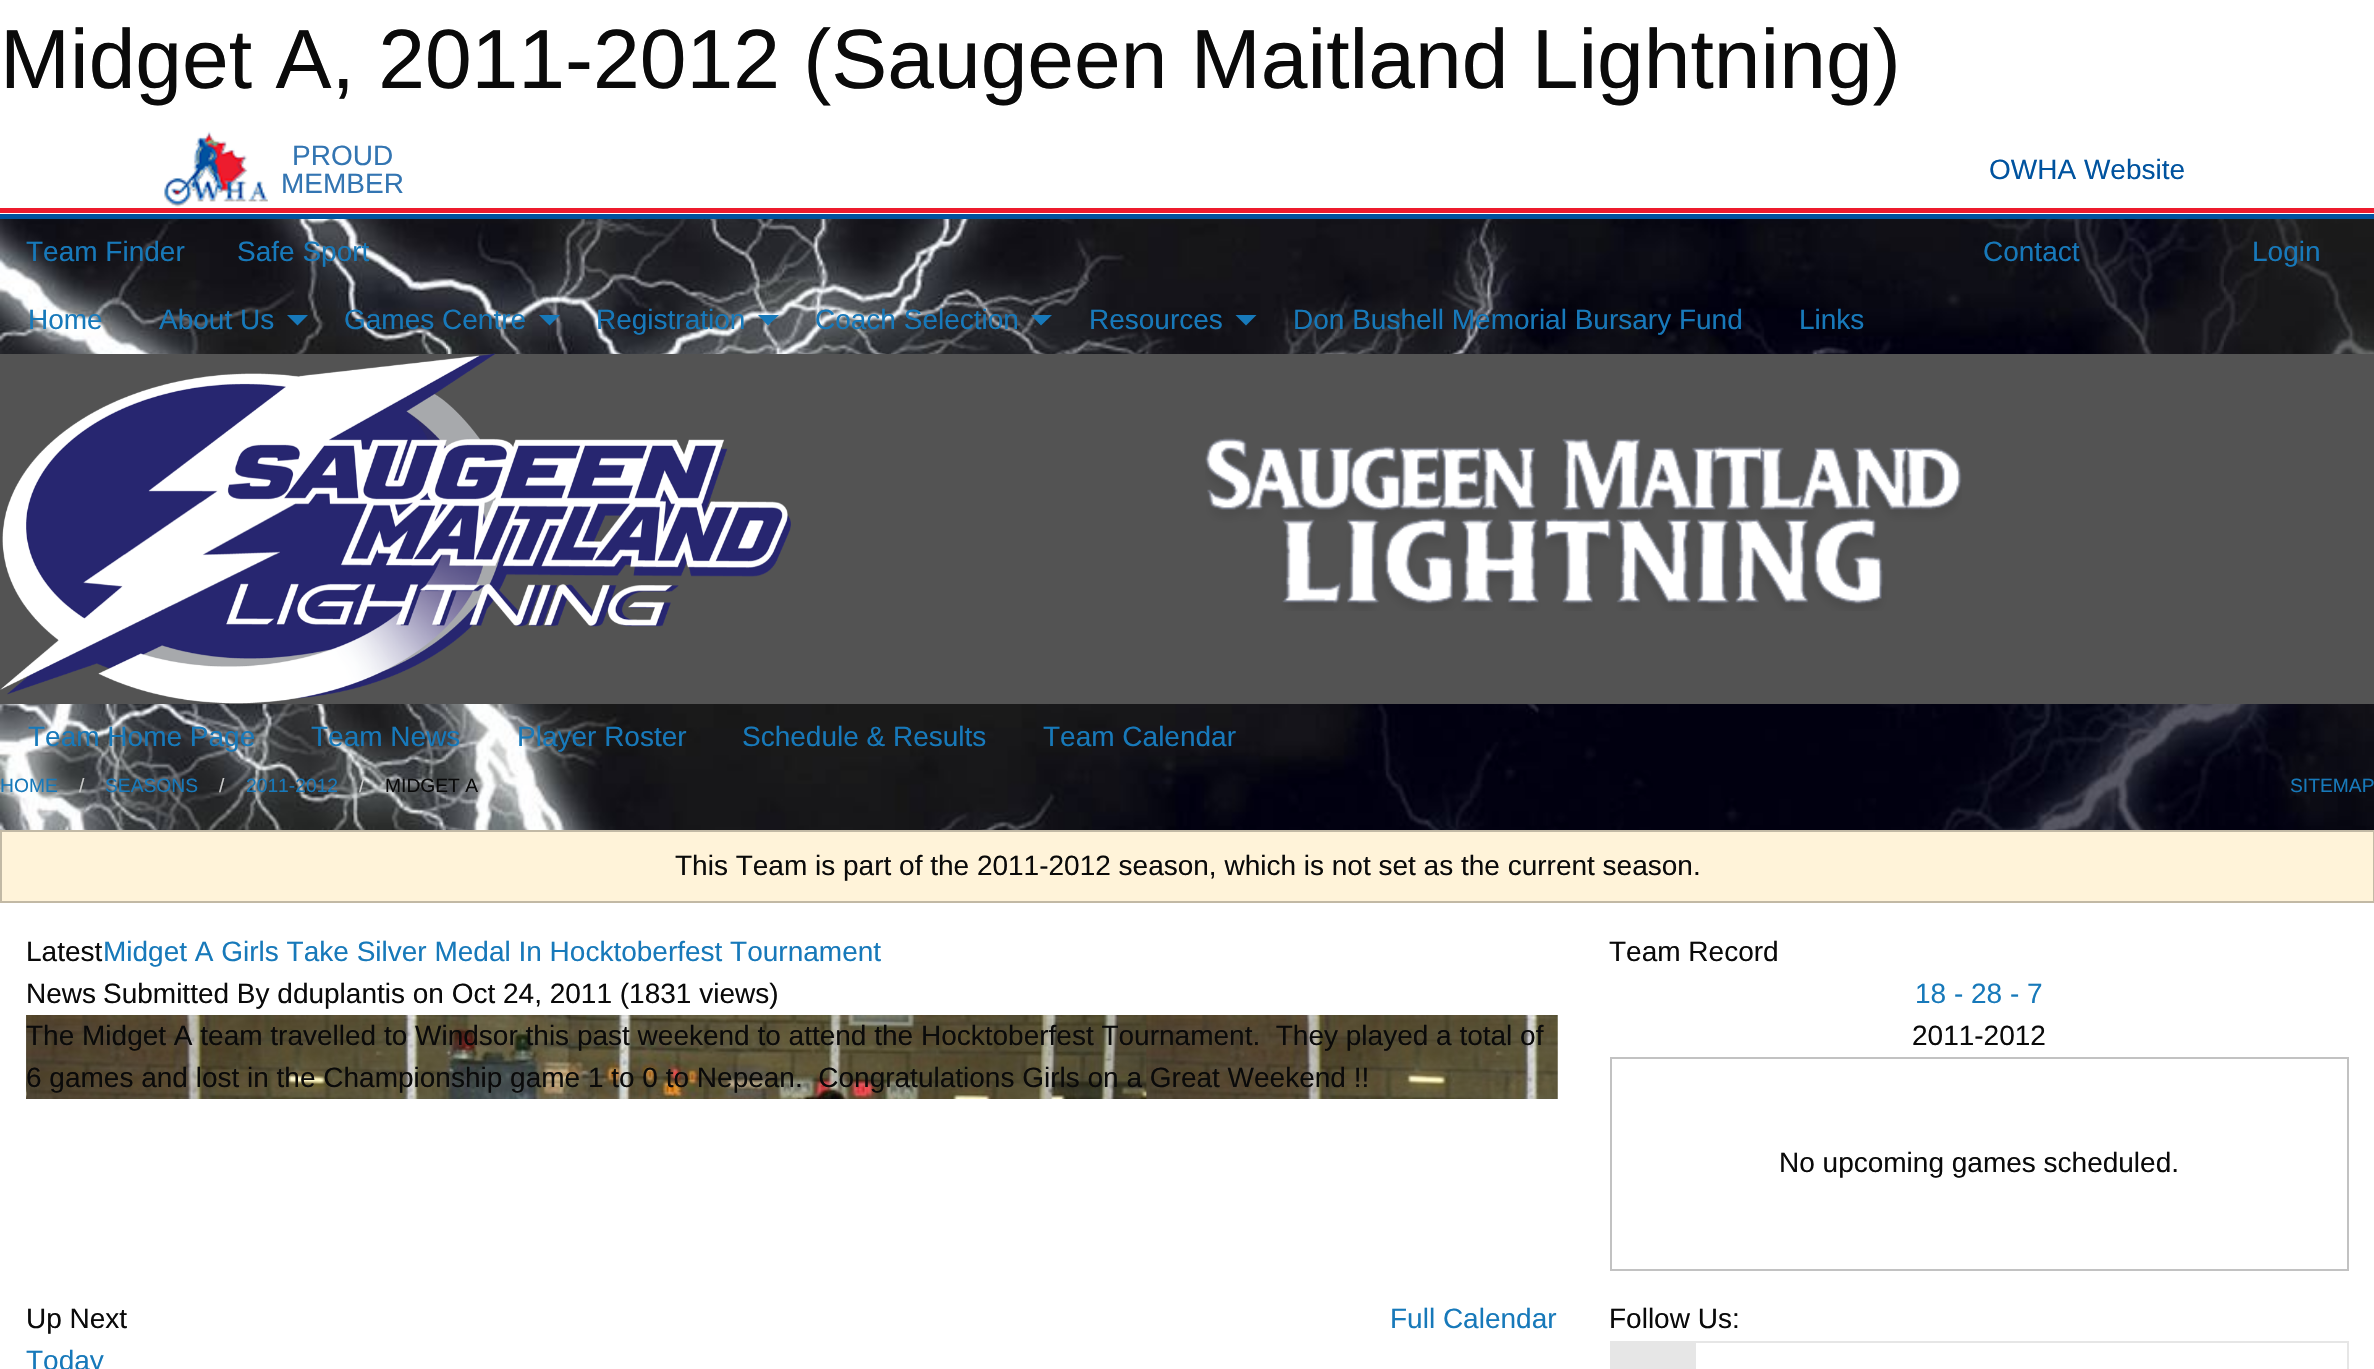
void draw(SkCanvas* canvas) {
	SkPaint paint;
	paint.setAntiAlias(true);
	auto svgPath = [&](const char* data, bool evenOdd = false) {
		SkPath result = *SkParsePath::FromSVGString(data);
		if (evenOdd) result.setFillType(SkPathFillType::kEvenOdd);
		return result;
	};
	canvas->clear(0xffffffff);
	SkFont f1(fontMgr->matchFamilyStyle("Liberation Sans", SkFontStyle::Normal()), 84);
	f1.setSubpixel(true);
	paint.setColor(0xff0a0a0a);
	canvas->drawString("Midget A, 2011-2012 (Saugeen Maitland Lightning)", 0, 88, f1, paint);
	canvas->drawImageRect(SkImages::DeferredFromEncodedData(SkData::MakeFromFileName("img1.png")), SkRect::MakeXYWH(164, 131, 104, 76), SkSamplingOptions());
	SkFont f2(fontMgr->matchFamilyStyle("Liberation Sans", SkFontStyle::Normal()), 28);
	f2.setSubpixel(true);
	paint.setColor(0xff3375b2);
	canvas->drawString("PROUD", 292, 165, f2, paint);
	canvas->drawString("MEMBER", 281, 193, f2, paint);
	paint.setColor(0xff00539f);
	canvas->drawString("OWHA Website", 1989, 179, f2, paint);
	paint.setColor(0xffed1b2d);
	canvas->drawRect(SkRect::MakeXYWH(0, 208, 2374, 5), paint);
	paint.setColor(0xff00539f);
	canvas->drawRect(SkRect::MakeXYWH(0, 214, 2374, 5), paint);
	canvas->drawImageRect(SkImages::DeferredFromEncodedData(SkData::MakeFromFileName("img2.png")), SkRect::MakeXYWH(0, 219, 2374, 611), SkSamplingOptions());
	paint.setColor(0xff1779ba);
	canvas->drawString("Team Finder", 26, 261, f2, paint);
	canvas->drawString("Safe Sport", 237, 261, f2, paint);
	canvas->drawString("Contact", 1983, 261, f2, paint);
	canvas->drawString("Login", 2252, 261, f2, paint);
	canvas->drawString("Home", 28, 329, f2, paint);
	canvas->drawString("About Us", 159, 329, f2, paint);
	canvas->drawPath(svgPath("M287 315H308L297.5 325.5Z"), paint);
	canvas->drawString("Games Centre", 344, 329, f2, paint);
	canvas->drawPath(svgPath("M539 315H560L549.5 325.5Z"), paint);
	canvas->drawString("Registration", 596, 329, f2, paint);
	canvas->drawPath(svgPath("M758 315H779L768 325.5Z"), paint);
	canvas->drawString("Coach Selection", 815, 329, f2, paint);
	canvas->drawPath(svgPath("M1031 315H1052L1041 325.5Z"), paint);
	canvas->drawString("Resources", 1089, 329, f2, paint);
	canvas->drawPath(svgPath("M1235.5 315H1256.5L1246 325.5Z"), paint);
	canvas->drawString("Don Bushell Memorial Bursary Fund", 1293, 329, f2, paint);
	canvas->drawString("Links", 1799, 329, f2, paint);
	paint.setColor(0xff535353);
	canvas->drawRect(SkRect::MakeXYWH(0, 354, 2374, 350), paint);
	canvas->drawImageRect(SkImages::DeferredFromEncodedData(SkData::MakeFromFileName("img3.png")), SkRect::MakeXYWH(0, 353, 791, 351), SkSamplingOptions());
	canvas->drawImageRect(SkImages::DeferredFromEncodedData(SkData::MakeFromFileName("img4.png")), SkRect::MakeXYWH(1205, 437, 757, 174), SkSamplingOptions());
	paint.setColor(0xff1779ba);
	canvas->drawString("Team Home Page", 28, 746, f2, paint);
	canvas->drawString("Team News", 311, 746, f2, paint);
	canvas->drawString("Player Roster", 517, 746, f2, paint);
	canvas->drawString("Schedule & Results", 742, 746, f2, paint);
	canvas->drawString("Team Calendar", 1043, 746, f2, paint);
	SkFont f3(fontMgr->matchFamilyStyle("Liberation Sans", SkFontStyle::Normal()), 19.25);
	f3.setSubpixel(true);
	canvas->drawString("HOME", 0, 792, f3, paint);
	paint.setColor(0xffcacaca);
	canvas->drawString("/", 79, 792, f3, paint);
	paint.setColor(0xff1779ba);
	canvas->drawString("SEASONS", 105, 792, f3, paint);
	paint.setColor(0xffcacaca);
	canvas->drawString("/", 219, 792, f3, paint);
	paint.setColor(0xff1779ba);
	canvas->drawString("2011-2012", 246, 792, f3, paint);
	paint.setColor(0xffcacaca);
	canvas->drawString("/", 359, 792, f3, paint);
	paint.setColor(0xff0a0a0a);
	canvas->drawString("MIDGET A", 385, 792, f3, paint);
	paint.setColor(0xff1779ba);
	canvas->drawString("SITEMAP", 2290, 792, f3, paint);
	paint.setColor(0xfffff3d9);
	canvas->drawRect(SkRect::MakeXYWH(1, 831, 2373, 71), paint);
	paint.setStroke(true);
	paint.setStrokeWidth(2);
	paint.setColor(0xffc2b9a5);
	canvas->drawRect(SkRect::MakeXYWH(1, 831, 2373, 71), paint);
	paint.setStroke(false);
	paint.setColor(0xff0a0a0a);
	canvas->drawString("This Team is part of the 2011-2012 season, which is not set as the current season.", 675, 875, f2, paint);
	canvas->drawString("Latest", 26, 961, f2, paint);
	canvas->drawString("News", 26, 1003, f2, paint);
	paint.setColor(0xff1779ba);
	canvas->drawString("Midget A Girls Take Silver Medal In Hocktoberfest Tournament", 103, 961, f2, paint);
	paint.setColor(0xff0a0a0a);
	canvas->drawString("Submitted By dduplantis on Oct 24, 2011 (1831 views)", 103, 1003, f2, paint);
	canvas->drawImageRect(SkImages::DeferredFromEncodedData(SkData::MakeFromFileName("img5.png")), SkRect::MakeXYWH(26, 1015, 1532, 84), SkSamplingOptions());
	canvas->drawImageRect(SkImages::DeferredFromEncodedData(SkData::MakeFromFileName("img6.png")), SkRect::MakeXYWH(26, 1015, 1532, 84), SkSamplingOptions());
	canvas->drawString("The Midget A team travelled to Windsor this past weekend to attend the Hocktoberfest Tournament.  They played a total of", 26, 1045, f2, paint);
	canvas->drawString("6 games and lost in the Championship game 1 to 0 to Nepean.  Congratulations Girls on a Great Weekend !!", 26, 1087, f2, paint);
	canvas->drawString("Team Record", 1609, 961, f2, paint);
	paint.setColor(0xff1779ba);
	canvas->drawString("18 - 28 - 7", 1915, 1003, f2, paint);
	paint.setColor(0xff0a0a0a);
	canvas->drawString("2011-2012", 1912, 1045, f2, paint);
	paint.setStroke(true);
	paint.setColor(0xffc2c2c2);
	canvas->drawRect(SkRect::MakeXYWH(1611, 1058, 737, 212), paint);
	paint.setStroke(false);
	paint.setColor(0xff0a0a0a);
	canvas->drawString("No upcoming games scheduled.", 1779, 1172, f2, paint);
	canvas->drawString("Up Next", 26, 1328, f2, paint);
	paint.setColor(0xff1779ba);
	canvas->drawString("Full Calendar", 1390, 1328, f2, paint);
	canvas->drawString("Today", 26, 1370, f2, paint);
	paint.setColor(0xff0a0a0a);
	canvas->drawString("Follow Us:", 1609, 1328, f2, paint);
	paint.setStroke(true);
	paint.setColor(0xffe6e6e6);
	canvas->drawRect(SkRect::MakeXYWH(1611, 1342, 737, 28), paint);
	paint.setStroke(false);
	canvas->drawRect(SkRect::MakeXYWH(1612, 1343, 84, 26), paint);
}
